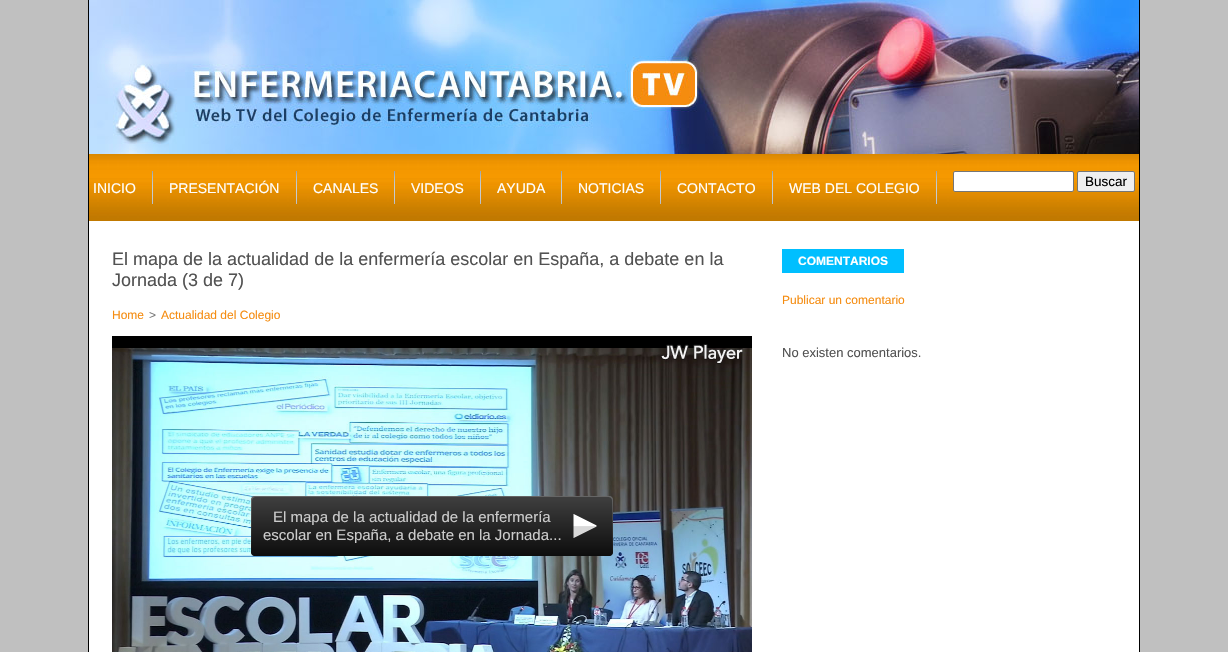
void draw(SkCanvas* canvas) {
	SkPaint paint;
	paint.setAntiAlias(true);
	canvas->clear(0xffc0c0c0);
	paint.setColor(0xff000000);
	canvas->drawRect(SkRect::MakeXYWH(88, 0, 1, 652), paint);
	canvas->drawImageRect(SkImages::DeferredFromEncodedData(SkData::MakeFromFileName("img1.png")), SkRect::MakeXYWH(89, 0, 1050, 154), SkSamplingOptions());
	canvas->drawImageRect(SkImages::DeferredFromEncodedData(SkData::MakeFromFileName("img2.png")), SkRect::MakeXYWH(89, 154, 1050, 67), SkSamplingOptions());
	SkFont f1(fontMgr->matchFamilyStyle("Liberation Sans", SkFontStyle::Normal()), 14);
	f1.setSubpixel(true);
	paint.setColor(0xffffffff);
	canvas->drawString("INICIO", 93, 193, f1, paint);
	canvas->drawImageRect(SkImages::DeferredFromEncodedData(SkData::MakeFromFileName("img3.png")), SkRect::MakeXYWH(152, 171, 1, 33), SkSamplingOptions());
	canvas->drawString("PRESENTACIÓN", 169, 193, f1, paint);
	canvas->drawImageRect(SkImages::DeferredFromEncodedData(SkData::MakeFromFileName("img3.png")), SkRect::MakeXYWH(296, 171, 1, 33), SkSamplingOptions());
	canvas->drawString("CANALES", 313, 193, f1, paint);
	canvas->drawImageRect(SkImages::DeferredFromEncodedData(SkData::MakeFromFileName("img3.png")), SkRect::MakeXYWH(394, 171, 1, 33), SkSamplingOptions());
	canvas->drawString("VIDEOS", 411, 193, f1, paint);
	canvas->drawImageRect(SkImages::DeferredFromEncodedData(SkData::MakeFromFileName("img3.png")), SkRect::MakeXYWH(480, 171, 1, 33), SkSamplingOptions());
	canvas->drawString("AYUDA", 497, 193, f1, paint);
	canvas->drawImageRect(SkImages::DeferredFromEncodedData(SkData::MakeFromFileName("img3.png")), SkRect::MakeXYWH(561, 171, 1, 33), SkSamplingOptions());
	canvas->drawString("NOTICIAS", 578, 193, f1, paint);
	canvas->drawImageRect(SkImages::DeferredFromEncodedData(SkData::MakeFromFileName("img3.png")), SkRect::MakeXYWH(660, 171, 1, 33), SkSamplingOptions());
	canvas->drawString("CONTACTO", 677, 193, f1, paint);
	canvas->drawImageRect(SkImages::DeferredFromEncodedData(SkData::MakeFromFileName("img3.png")), SkRect::MakeXYWH(772, 171, 1, 33), SkSamplingOptions());
	canvas->drawString("WEB DEL COLEGIO", 789, 193, f1, paint);
	canvas->drawImageRect(SkImages::DeferredFromEncodedData(SkData::MakeFromFileName("img3.png")), SkRect::MakeXYWH(936, 171, 1, 33), SkSamplingOptions());
	canvas->drawRoundRect(SkRect::MakeXYWH(953.5, 171.5, 120, 20), 1.5, 1.5, paint);
	paint.setStroke(true);
	paint.setStrokeWidth(1);
	paint.setColor(0xff767676);
	canvas->drawRoundRect(SkRect::MakeXYWH(953.5, 171.5, 120, 20), 1.5, 1.5, paint);
	paint.setStroke(false);
	paint.setColor(0xffefefef);
	canvas->drawRoundRect(SkRect::MakeXYWH(1077.5, 171.5, 57, 20), 1.5, 1.5, paint);
	paint.setStroke(true);
	paint.setColor(0xff767676);
	canvas->drawRoundRect(SkRect::MakeXYWH(1077.5, 171.5, 57, 20), 1.5, 1.5, paint);
	SkFont f2(fontMgr->matchFamilyStyle("Liberation Sans", SkFontStyle::Normal()), 13.5);
	f2.setSubpixel(true);
	paint.setStroke(false);
	paint.setColor(0xff000000);
	canvas->drawString("Buscar", 1085, 186, f2, paint);
	paint.setColor(0xffffffff);
	canvas->drawRect(SkRect::MakeXYWH(89, 221, 1050, 431), paint);
	paint.setColor(0xff000000);
	canvas->drawRect(SkRect::MakeXYWH(1139, 0, 1, 652), paint);
	SkFont f3(fontMgr->matchFamilyStyle("Liberation Sans", SkFontStyle::Normal()), 18);
	f3.setSubpixel(true);
	paint.setColor(0xff525252);
	canvas->drawString("El mapa de la actualidad de la enfermería escolar en España, a debate en la", 112, 265, f3, paint);
	canvas->drawString("Jornada (3 de 7)", 112, 286, f3, paint);
	SkFont f4(fontMgr->matchFamilyStyle("Liberation Sans", SkFontStyle::Normal()), 12);
	f4.setSubpixel(true);
	paint.setColor(0xfff58c10);
	canvas->drawString("Home", 112, 319, f4, paint);
	paint.setColor(0xff797979);
	canvas->drawString(">", 149, 319, f4, paint);
	paint.setColor(0xfff58c10);
	canvas->drawString("Actualidad del Colegio", 161, 319, f4, paint);
	paint.setColor(0xff000000);
	canvas->drawRect(SkRect::MakeXYWH(112, 336, 640, 12), paint);
	canvas->drawImageRect(SkImages::DeferredFromEncodedData(SkData::MakeFromFileName("img5.png")), SkRect::MakeXYWH(112, 348, 640, 304), SkSamplingOptions());
	canvas->drawImageRect(SkImages::DeferredFromEncodedData(SkData::MakeFromFileName("img4.png")), SkRect::MakeXYWH(661, 344, 82, 20), SkSamplingOptions());
	canvas->drawImageRect(SkImages::DeferredFromEncodedData(SkData::MakeFromFileName("img6.png")), SkRect::MakeXYWH(251, 496, 362, 60), SkSamplingOptions());
	SkFont f5(fontMgr->matchFamilyStyle("Liberation Sans", SkFontStyle::Normal()), 15);
	f5.setSubpixel(true);
	paint.setColor(0xffcccccc);
	canvas->drawString("El mapa de la actualidad de la enfermería", 273, 522, f5, paint);
	canvas->drawString("escolar en España, a debate en la Jornada...", 263, 540, f5, paint);
	canvas->drawImageRect(SkImages::DeferredFromEncodedData(SkData::MakeFromFileName("img7.png")), SkRect::MakeXYWH(573, 514, 24, 24), SkSamplingOptions());
	paint.setColor(0xff00bfff);
	canvas->drawRect(SkRect::MakeXYWH(782, 249, 122, 24), paint);
	SkFont f6(fontMgr->matchFamilyStyle("Liberation Sans", SkFontStyle::Bold()), 12);
	f6.setSubpixel(true);
	paint.setColor(0xffffffff);
	canvas->drawString("COMENTARIOS", 798, 265, f6, paint);
	paint.setColor(0xfff58c10);
	canvas->drawString("Publicar un comentario", 782, 304, f4, paint);
	SkFont f7(fontMgr->matchFamilyStyle("Liberation Sans", SkFontStyle::Normal()), 13);
	f7.setSubpixel(true);
	paint.setColor(0xff525252);
	canvas->drawString("No existen comentarios.", 782, 357, f7, paint);
}
